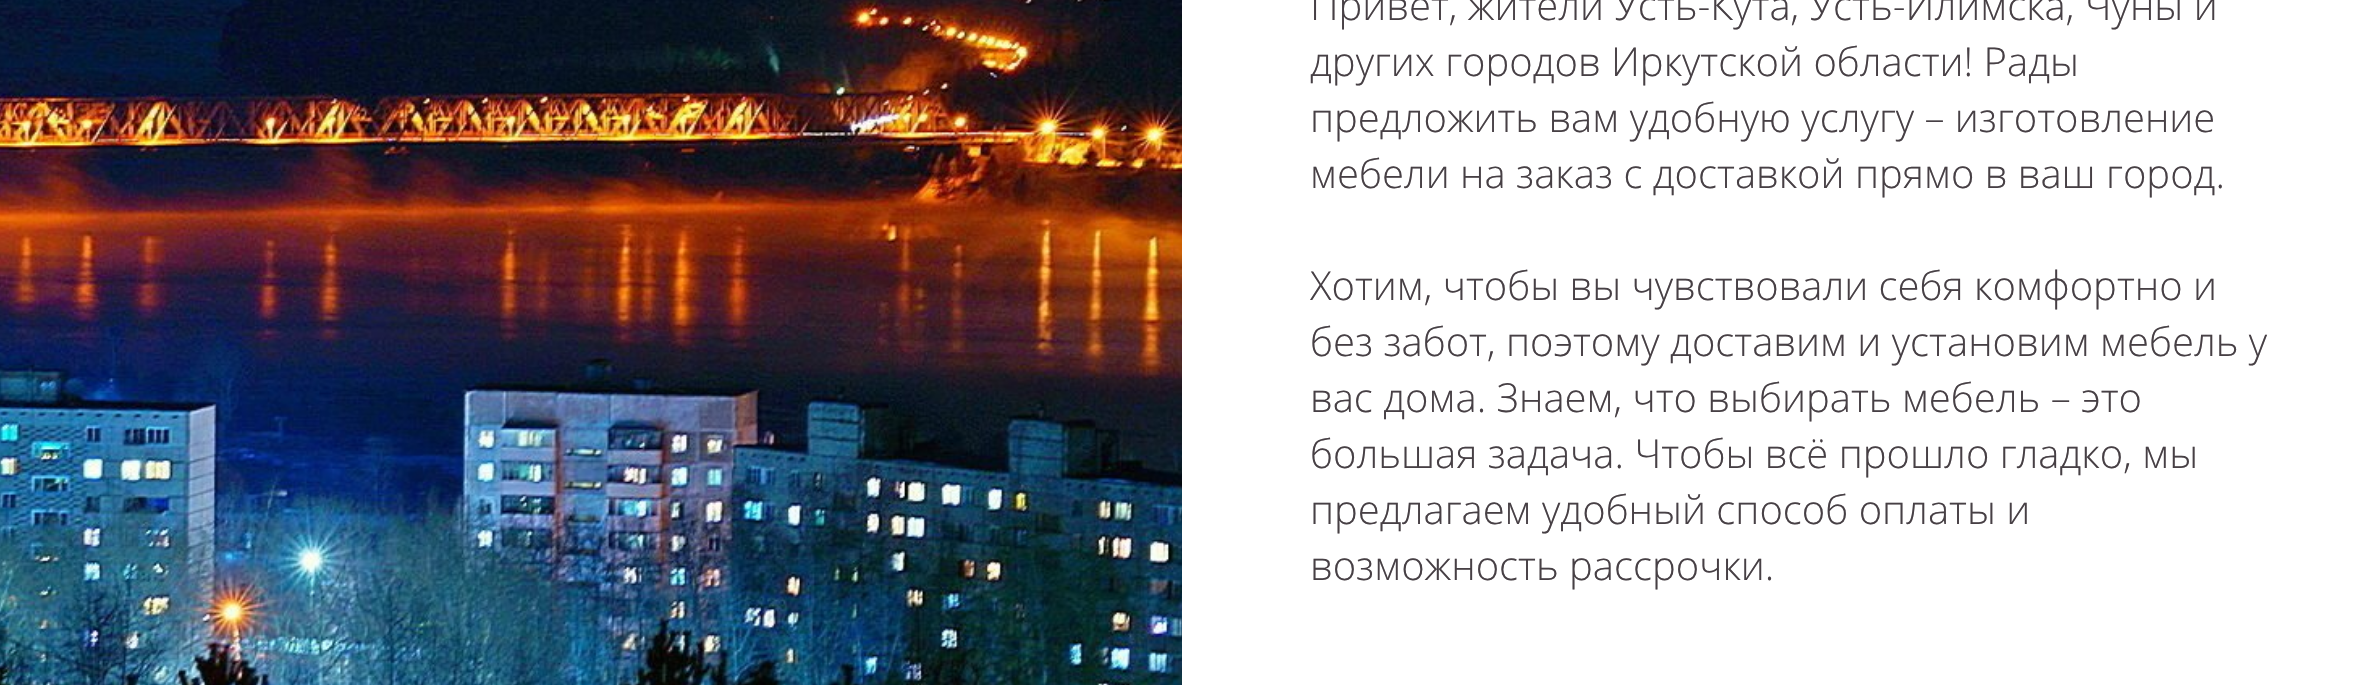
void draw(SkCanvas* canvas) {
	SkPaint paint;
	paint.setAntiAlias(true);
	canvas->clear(0xffffffff);
	canvas->drawImageRect(SkImages::DeferredFromEncodedData(SkData::MakeFromFileName("img1.png")), SkRect::MakeXYWH(0, 0, 1182, 685), SkSamplingOptions());
	SkFont f1(fontMgr->matchFamilyStyle("Open Sans", SkFontStyle(300, SkFontStyle::kNormal_Width, SkFontStyle::kUpright_Slant)), 40);
	f1.setSubpixel(true);
	paint.setColor(0xff474045);
	canvas->drawString("Привет, жители Усть-Кута, Усть-Илимска, Чуны и", 1310, 20, f1, paint);
	canvas->drawString("других городов Иркутской области! Рады", 1310, 76, f1, paint);
	canvas->drawString("предложить вам удобную услугу – изготовление", 1310, 132, f1, paint);
	canvas->drawString("мебели на заказ с доставкой прямо в ваш город.", 1310, 188, f1, paint);
	canvas->drawString("Хотим, чтобы вы чувствовали себя комфортно и", 1310, 300, f1, paint);
	canvas->drawString("без забот, поэтому доставим и установим мебель у", 1310, 356, f1, paint);
	canvas->drawString("вас дома. Знаем, что выбирать мебель – это", 1310, 412, f1, paint);
	canvas->drawString("большая задача. Чтобы всё прошло гладко, мы", 1310, 468, f1, paint);
	canvas->drawString("предлагаем удобный способ оплаты и", 1310, 524, f1, paint);
	canvas->drawString("возможность рассрочки.", 1310, 580, f1, paint);
}
